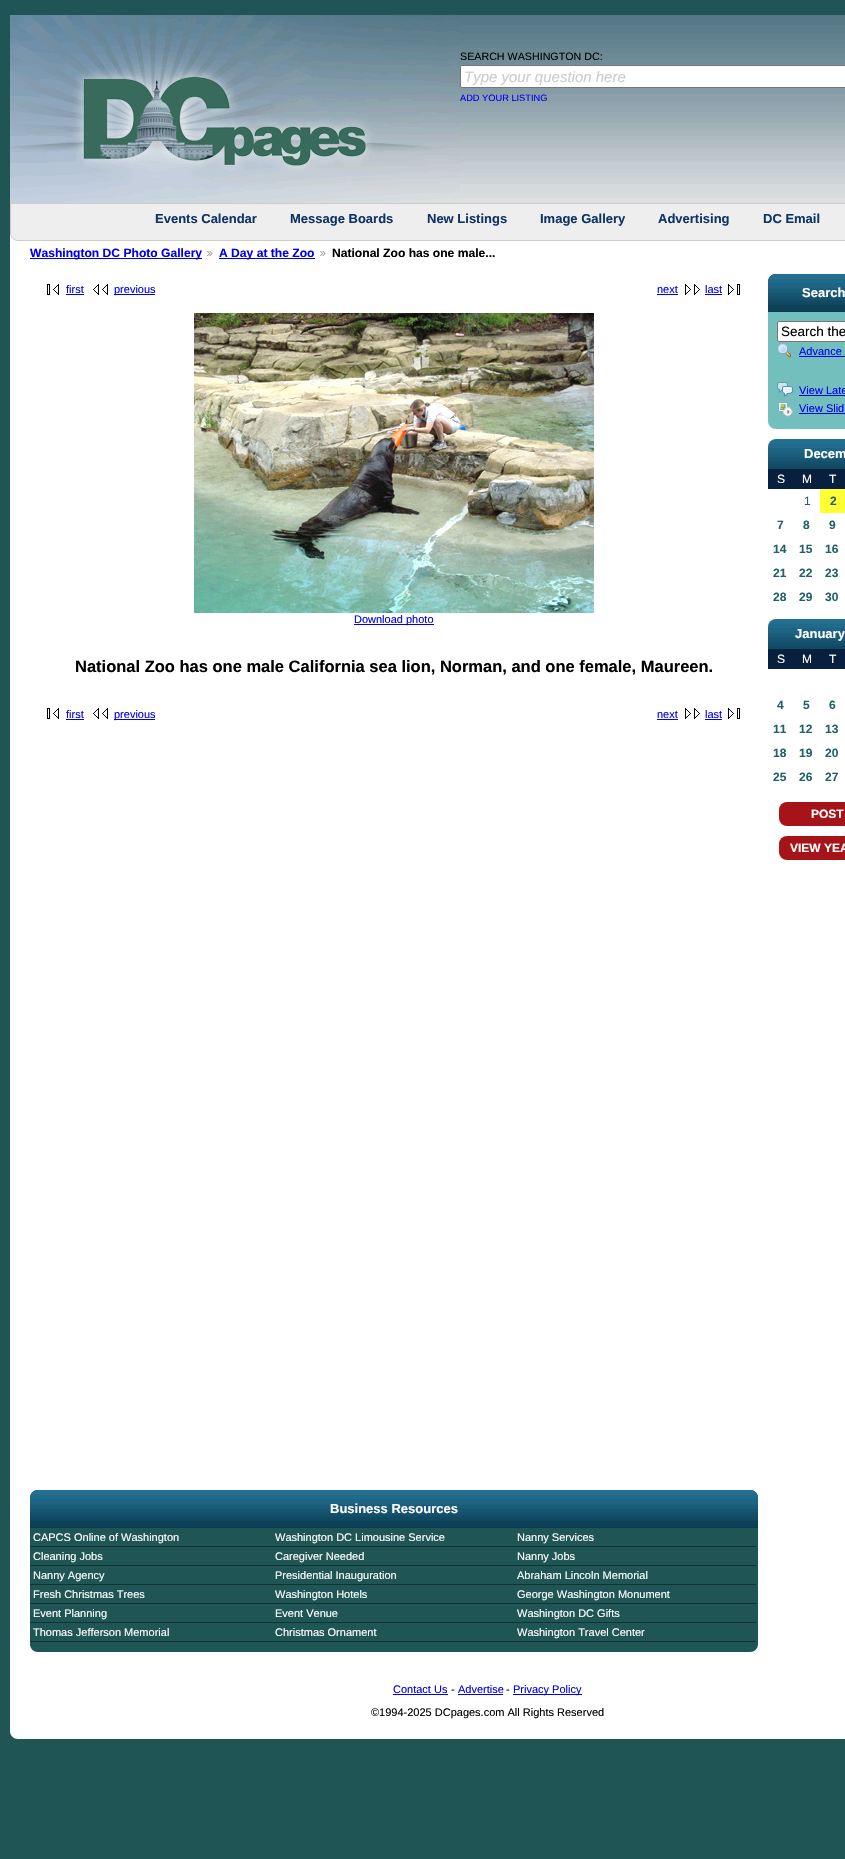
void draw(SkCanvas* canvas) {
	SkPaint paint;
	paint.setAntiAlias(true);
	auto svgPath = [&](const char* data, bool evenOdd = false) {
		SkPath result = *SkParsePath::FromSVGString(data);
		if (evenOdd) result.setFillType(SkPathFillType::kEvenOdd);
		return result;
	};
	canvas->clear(0xff1f5555);
	paint.setColor(0xffffffff);
	canvas->drawPath(svgPath("M10 15H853V1731C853 1735.5 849.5 1739 845 1739H18C13.5 1739 10 1735.5 10 1731Z"), paint);
	canvas->drawImageRect(SkImages::DeferredFromEncodedData(SkData::MakeFromFileName("img1.png")), SkRect::MakeXYWH(10, 15, 450, 188), SkSamplingOptions());
	paint.setColor(0xff6588a2);
	canvas->drawRect(SkRect::MakeXYWH(10, 15, 7, 7), paint);
	canvas->drawImageRect(SkImages::DeferredFromEncodedData(SkData::MakeFromFileName("img2.png")), SkRect::MakeXYWH(460, 15, 385, 188), SkSamplingOptions());
	SkFont f1(fontMgr->matchFamilyStyle("Liberation Sans", SkFontStyle::Normal()), 10.7);
	f1.setSubpixel(true);
	paint.setColor(0xff000000);
	canvas->drawString("SEARCH WASHINGTON DC:", 460, 60, f1, paint);
	paint.setColor(0xffffffff);
	canvas->drawRoundRect(SkRect::MakeXYWH(460.5, 65.5, 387, 22), 1.5, 1.5, paint);
	paint.setStroke(true);
	paint.setStrokeWidth(1);
	paint.setColor(0xff767676);
	canvas->drawRoundRect(SkRect::MakeXYWH(460.5, 65.5, 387, 22), 1.5, 1.5, paint);
	canvas->save();
	canvas->clipRect(SkRect::MakeXYWH(464, 68, 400, 17));
	SkFont f2(fontMgr->matchFamilyStyle("Liberation Sans", SkFontStyle::Italic()), 15);
	f2.setSubpixel(true);
	paint.setStroke(false);
	paint.setColor(0xffcccccc);
	canvas->drawString("Type your question here", 464, 82, f2, paint);
	canvas->restore();
	SkFont f3(fontMgr->matchFamilyStyle("Liberation Sans", SkFontStyle::Normal()), 9.25);
	f3.setSubpixel(true);
	paint.setColor(0xff0000ee);
	canvas->drawString("ADD YOUR LISTING", 460, 101, f3, paint);
	paint.setColor(0xffeeeeee);
	canvas->drawPath(svgPath("M10.5 203.5H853.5V233C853.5 237 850 240.5 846 240.5H18C14 240.5 10.5 237 10.5 233Z"), paint);
	paint.setStroke(true);
	paint.setColor(0xffcccccc);
	canvas->drawPath(svgPath("M10.5 203.5H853.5V233C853.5 237 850 240.5 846 240.5H18C14 240.5 10.5 237 10.5 233Z"), paint);
	SkFont f4(fontMgr->matchFamilyStyle("Liberation Sans", SkFontStyle::Bold()), 13);
	f4.setSubpixel(true);
	paint.setStroke(false);
	paint.setColor(0xff0e3365);
	canvas->drawString("Events Calendar", 155, 223, f4, paint);
	canvas->drawString("Message Boards", 290, 223, f4, paint);
	canvas->drawString("New Listings", 427, 223, f4, paint);
	canvas->drawString("Image Gallery", 540, 223, f4, paint);
	canvas->drawString("Advertising", 658, 223, f4, paint);
	canvas->drawString("DC Email", 763, 223, f4, paint);
	paint.setColor(0xff0000ee);
	canvas->drawRect(SkRect::MakeXYWH(30, 258, 172, 1), paint);
	SkFont f5(fontMgr->matchFamilyStyle("Liberation Sans", SkFontStyle::Bold()), 12.1);
	f5.setSubpixel(true);
	canvas->drawString("Washington DC Photo Gallery", 30, 257, f5, paint);
	canvas->drawImageRect(SkImages::DeferredFromEncodedData(SkData::MakeFromFileName("img3.png")), SkRect::MakeXYWH(207, 251, 6, 5), SkSamplingOptions());
	canvas->drawRect(SkRect::MakeXYWH(219, 258, 96, 1), paint);
	canvas->drawString("A Day at the Zoo", 219, 257, f5, paint);
	canvas->drawImageRect(SkImages::DeferredFromEncodedData(SkData::MakeFromFileName("img3.png")), SkRect::MakeXYWH(320, 251, 6, 5), SkSamplingOptions());
	paint.setColor(0xff000000);
	canvas->drawString("National Zoo has one male...", 332, 257, f5, paint);
	canvas->drawImageRect(SkImages::DeferredFromEncodedData(SkData::MakeFromFileName("img4.png")), SkRect::MakeXYWH(47, 284, 12, 11), SkSamplingOptions());
	SkFont f6(fontMgr->matchFamilyStyle("Liberation Sans", SkFontStyle::Normal()), 11);
	f6.setSubpixel(true);
	paint.setColor(0xff0000ee);
	canvas->drawString("first", 66, 293, f6, paint);
	canvas->drawRect(SkRect::MakeXYWH(66, 294, 18, 1), paint);
	canvas->drawImageRect(SkImages::DeferredFromEncodedData(SkData::MakeFromFileName("img5.png")), SkRect::MakeXYWH(93, 284, 15, 11), SkSamplingOptions());
	canvas->drawRect(SkRect::MakeXYWH(114, 294, 41, 1), paint);
	canvas->drawString("previous", 114, 293, f6, paint);
	canvas->drawString("next", 657, 293, f6, paint);
	canvas->drawRect(SkRect::MakeXYWH(657, 294, 21, 1), paint);
	canvas->drawImageRect(SkImages::DeferredFromEncodedData(SkData::MakeFromFileName("img6.png")), SkRect::MakeXYWH(685, 284, 15, 11), SkSamplingOptions());
	canvas->drawString("last", 705, 293, f6, paint);
	canvas->drawRect(SkRect::MakeXYWH(705, 294, 17, 1), paint);
	canvas->drawImageRect(SkImages::DeferredFromEncodedData(SkData::MakeFromFileName("img7.png")), SkRect::MakeXYWH(728, 284, 12, 11), SkSamplingOptions());
	canvas->drawImageRect(SkImages::DeferredFromEncodedData(SkData::MakeFromFileName("img8.png")), SkRect::MakeXYWH(194, 313, 400, 300), SkSamplingOptions());
	canvas->drawRect(SkRect::MakeXYWH(354, 624, 80, 1), paint);
	canvas->drawString("Download photo", 354, 623, f6, paint);
	SkFont f7(fontMgr->matchFamilyStyle("Liberation Sans", SkFontStyle::Bold()), 16.5);
	f7.setSubpixel(true);
	paint.setColor(0xff000000);
	canvas->drawString("National Zoo has one male California sea lion, Norman, and one female, Maureen.", 75, 672, f7, paint);
	canvas->drawImageRect(SkImages::DeferredFromEncodedData(SkData::MakeFromFileName("img4.png")), SkRect::MakeXYWH(47, 708, 12, 11), SkSamplingOptions());
	paint.setColor(0xff0000ee);
	canvas->drawString("first", 66, 718, f6, paint);
	canvas->drawRect(SkRect::MakeXYWH(66, 719, 18, 1), paint);
	canvas->drawImageRect(SkImages::DeferredFromEncodedData(SkData::MakeFromFileName("img5.png")), SkRect::MakeXYWH(93, 708, 15, 11), SkSamplingOptions());
	canvas->drawRect(SkRect::MakeXYWH(114, 719, 41, 1), paint);
	canvas->drawString("previous", 114, 718, f6, paint);
	canvas->drawString("next", 657, 718, f6, paint);
	canvas->drawRect(SkRect::MakeXYWH(657, 719, 21, 1), paint);
	canvas->drawImageRect(SkImages::DeferredFromEncodedData(SkData::MakeFromFileName("img6.png")), SkRect::MakeXYWH(685, 708, 15, 11), SkSamplingOptions());
	canvas->drawString("last", 705, 718, f6, paint);
	canvas->drawRect(SkRect::MakeXYWH(705, 719, 17, 1), paint);
	canvas->drawImageRect(SkImages::DeferredFromEncodedData(SkData::MakeFromFileName("img7.png")), SkRect::MakeXYWH(728, 708, 12, 11), SkSamplingOptions());
	paint.setColor(0xff0b3b51);
	canvas->drawPath(svgPath("M38 1490H750C754.5 1490 758 1493.5 758 1498V1528H30V1498C30 1493.5 33.5 1490 38 1490Z"), paint);
	canvas->drawImageRect(SkImages::DeferredFromEncodedData(SkData::MakeFromFileName("img9.png")), SkRect::MakeXYWH(30, 1490, 728, 37), SkSamplingOptions());
	paint.setColor(0xffffffff);
	canvas->drawString("Business Resources", 330, 1513, f4, paint);
	paint.setColor(0xff1f5555);
	canvas->drawPath(svgPath("M30 1528H758V1644C758 1648.5 754.5 1652 750 1652H38C33.5 1652 30 1648.5 30 1644Z"), paint);
	paint.setColor(0xff133333);
	canvas->drawRect(SkRect::MakeXYWH(30, 1546, 726, 1), paint);
	paint.setColor(0xffffffff);
	canvas->drawString("CAPCS Online of Washington", 33, 1541, f6, paint);
	paint.setColor(0xff133333);
	canvas->drawRect(SkRect::MakeXYWH(30, 1565, 726, 1), paint);
	paint.setColor(0xffffffff);
	canvas->drawString("Cleaning Jobs", 33, 1560, f6, paint);
	paint.setColor(0xff133333);
	canvas->drawRect(SkRect::MakeXYWH(30, 1584, 726, 1), paint);
	paint.setColor(0xffffffff);
	canvas->drawString("Nanny Agency", 33, 1579, f6, paint);
	paint.setColor(0xff133333);
	canvas->drawRect(SkRect::MakeXYWH(30, 1603, 726, 1), paint);
	paint.setColor(0xffffffff);
	canvas->drawString("Fresh Christmas Trees", 33, 1598, f6, paint);
	paint.setColor(0xff133333);
	canvas->drawRect(SkRect::MakeXYWH(30, 1622, 726, 1), paint);
	paint.setColor(0xffffffff);
	canvas->drawString("Event Planning", 33, 1617, f6, paint);
	paint.setColor(0xff133333);
	canvas->drawRect(SkRect::MakeXYWH(30, 1641, 726, 1), paint);
	paint.setColor(0xffffffff);
	canvas->drawString("Thomas Jefferson Memorial", 33, 1636, f6, paint);
	canvas->drawString("Washington DC Limousine Service", 275, 1541, f6, paint);
	canvas->drawString("Caregiver Needed", 275, 1560, f6, paint);
	canvas->drawString("Presidential Inauguration", 275, 1579, f6, paint);
	canvas->drawString("Washington Hotels", 275, 1598, f6, paint);
	canvas->drawString("Event Venue", 275, 1617, f6, paint);
	canvas->drawString("Christmas Ornament", 275, 1636, f6, paint);
	canvas->drawString("Nanny Services", 517, 1541, f6, paint);
	canvas->drawString("Nanny Jobs", 517, 1560, f6, paint);
	canvas->drawString("Abraham Lincoln Memorial", 517, 1579, f6, paint);
	canvas->drawString("George Washington Monument", 517, 1598, f6, paint);
	canvas->drawString("Washington DC Gifts", 517, 1617, f6, paint);
	canvas->drawString("Washington Travel Center", 517, 1636, f6, paint);
	paint.setColor(0xff0b3b51);
	canvas->drawPath(svgPath("M776 274H845C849.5 274 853 277.5 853 282V312H768V282C768 277.5 771.5 274 776 274Z"), paint);
	canvas->drawImageRect(SkImages::DeferredFromEncodedData(SkData::MakeFromFileName("img10.png")), SkRect::MakeXYWH(768, 274, 77, 37), SkSamplingOptions());
	paint.setColor(0xffffffff);
	canvas->drawString("Search", 802, 297, f4, paint);
	paint.setColor(0xff73bfbe);
	canvas->drawPath(svgPath("M768 312H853V421C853 425.5 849.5 429 845 429H776C771.5 429 768 425.5 768 421Z"), paint);
	paint.setColor(0xffffffff);
	canvas->drawRoundRect(SkRect::MakeXYWH(777.5, 321.5, 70, 20), 1.5, 1.5, paint);
	paint.setStroke(true);
	paint.setColor(0xff767676);
	canvas->drawRoundRect(SkRect::MakeXYWH(777.5, 321.5, 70, 20), 1.5, 1.5, paint);
	SkFont f8(fontMgr->matchFamilyStyle("Liberation Sans", SkFontStyle::Normal()), 13.5);
	f8.setSubpixel(true);
	paint.setStroke(false);
	paint.setColor(0xff000000);
	canvas->drawString("Search the", 781, 336, f8, paint);
	canvas->drawImageRect(SkImages::DeferredFromEncodedData(SkData::MakeFromFileName("img11.png")), SkRect::MakeXYWH(778, 344, 13, 14), SkSamplingOptions());
	paint.setColor(0xff0000ee);
	canvas->drawString("Advance", 799, 355, f6, paint);
	canvas->drawRect(SkRect::MakeXYWH(799, 356, 46, 1), paint);
	canvas->drawImageRect(SkImages::DeferredFromEncodedData(SkData::MakeFromFileName("img12.png")), SkRect::MakeXYWH(777, 382, 16, 15), SkSamplingOptions());
	canvas->drawString("View Late", 799, 394, f6, paint);
	canvas->drawRect(SkRect::MakeXYWH(799, 395, 46, 1), paint);
	canvas->drawImageRect(SkImages::DeferredFromEncodedData(SkData::MakeFromFileName("img13.png")), SkRect::MakeXYWH(778, 402, 15, 15), SkSamplingOptions());
	canvas->drawString("View Slid", 799, 412, f6, paint);
	canvas->drawRect(SkRect::MakeXYWH(799, 413, 46, 1), paint);
	canvas->drawImageRect(SkImages::DeferredFromEncodedData(SkData::MakeFromFileName("img14.png")), SkRect::MakeXYWH(768, 439, 77, 30), SkSamplingOptions());
	paint.setColor(0xffffffff);
	canvas->drawString("Decem", 804, 458, f4, paint);
	paint.setColor(0xff081f3d);
	canvas->drawRect(SkRect::MakeXYWH(768, 469, 77, 20), paint);
	SkFont f9(fontMgr->matchFamilyStyle("Liberation Sans", SkFontStyle::Normal()), 12);
	f9.setSubpixel(true);
	paint.setColor(0xffffffff);
	canvas->drawString("S", 777, 483, f9, paint);
	canvas->drawString("M", 802, 483, f9, paint);
	canvas->drawString("T", 829, 483, f9, paint);
	paint.setColor(0xff226266);
	canvas->drawString("1", 804, 505, f9, paint);
	paint.setColor(0xffffff33);
	canvas->drawRect(SkRect::MakeXYWH(820, 489, 25, 24), paint);
	SkFont f10(fontMgr->matchFamilyStyle("Liberation Sans", SkFontStyle::Bold()), 12);
	f10.setSubpixel(true);
	paint.setColor(0xff226266);
	canvas->drawString("2", 830, 505, f10, paint);
	canvas->drawString("7", 777, 529, f10, paint);
	canvas->drawString("8", 803, 529, f10, paint);
	canvas->drawString("9", 829, 529, f10, paint);
	canvas->drawString("14", 773, 553, f10, paint);
	canvas->drawString("15", 799, 553, f10, paint);
	canvas->drawString("16", 825, 553, f10, paint);
	canvas->drawString("21", 773, 577, f10, paint);
	canvas->drawString("22", 799, 577, f10, paint);
	canvas->drawString("23", 825, 577, f10, paint);
	canvas->drawString("28", 773, 601, f10, paint);
	canvas->drawString("29", 799, 601, f10, paint);
	canvas->drawString("30", 825, 601, f10, paint);
	canvas->drawImageRect(SkImages::DeferredFromEncodedData(SkData::MakeFromFileName("img14.png")), SkRect::MakeXYWH(768, 619, 77, 30), SkSamplingOptions());
	paint.setColor(0xffffffff);
	canvas->drawString("January", 795, 638, f4, paint);
	paint.setColor(0xff081f3d);
	canvas->drawRect(SkRect::MakeXYWH(768, 649, 77, 20), paint);
	paint.setColor(0xffffffff);
	canvas->drawString("S", 777, 663, f9, paint);
	canvas->drawString("M", 802, 663, f9, paint);
	canvas->drawString("T", 829, 663, f9, paint);
	paint.setColor(0xff226266);
	canvas->drawString("4", 777, 709, f10, paint);
	canvas->drawString("5", 803, 709, f10, paint);
	canvas->drawString("6", 829, 709, f10, paint);
	canvas->drawString("11", 773, 733, f10, paint);
	canvas->drawString("12", 799, 733, f10, paint);
	canvas->drawString("13", 825, 733, f10, paint);
	canvas->drawString("18", 773, 757, f10, paint);
	canvas->drawString("19", 799, 757, f10, paint);
	canvas->drawString("20", 825, 757, f10, paint);
	canvas->drawString("25", 773, 781, f10, paint);
	canvas->drawString("26", 799, 781, f10, paint);
	canvas->drawString("27", 825, 781, f10, paint);
	paint.setColor(0xffa61318);
	canvas->drawRoundRect(SkRect::MakeXYWH(779, 802, 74, 24), 8, 8, paint);
	paint.setColor(0xffffffff);
	canvas->drawString("POST", 811, 818, f10, paint);
	paint.setColor(0xffa61318);
	canvas->drawRoundRect(SkRect::MakeXYWH(779, 836, 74, 24), 8, 8, paint);
	paint.setColor(0xffffffff);
	canvas->drawString("VIEW YEA", 790, 852, f10, paint);
	paint.setColor(0xff0000ee);
	canvas->drawString("Contact Us", 393, 1693, f6, paint);
	canvas->drawRect(SkRect::MakeXYWH(393, 1694, 55, 1), paint);
	paint.setColor(0xff000000);
	canvas->drawString("-", 451, 1693, f6, paint);
	paint.setColor(0xff0000ee);
	canvas->drawString("Advertise", 458, 1693, f6, paint);
	canvas->drawRect(SkRect::MakeXYWH(458, 1694, 45, 1), paint);
	paint.setColor(0xff000000);
	canvas->drawString("-", 506, 1693, f6, paint);
	paint.setColor(0xff0000ee);
	canvas->drawRect(SkRect::MakeXYWH(513, 1694, 69, 1), paint);
	canvas->drawString("Privacy Policy", 513, 1693, f6, paint);
	paint.setColor(0xff000000);
	canvas->drawString("©1994-2025 DCpages.com All Rights Reserved", 371, 1716, f6, paint);
}
